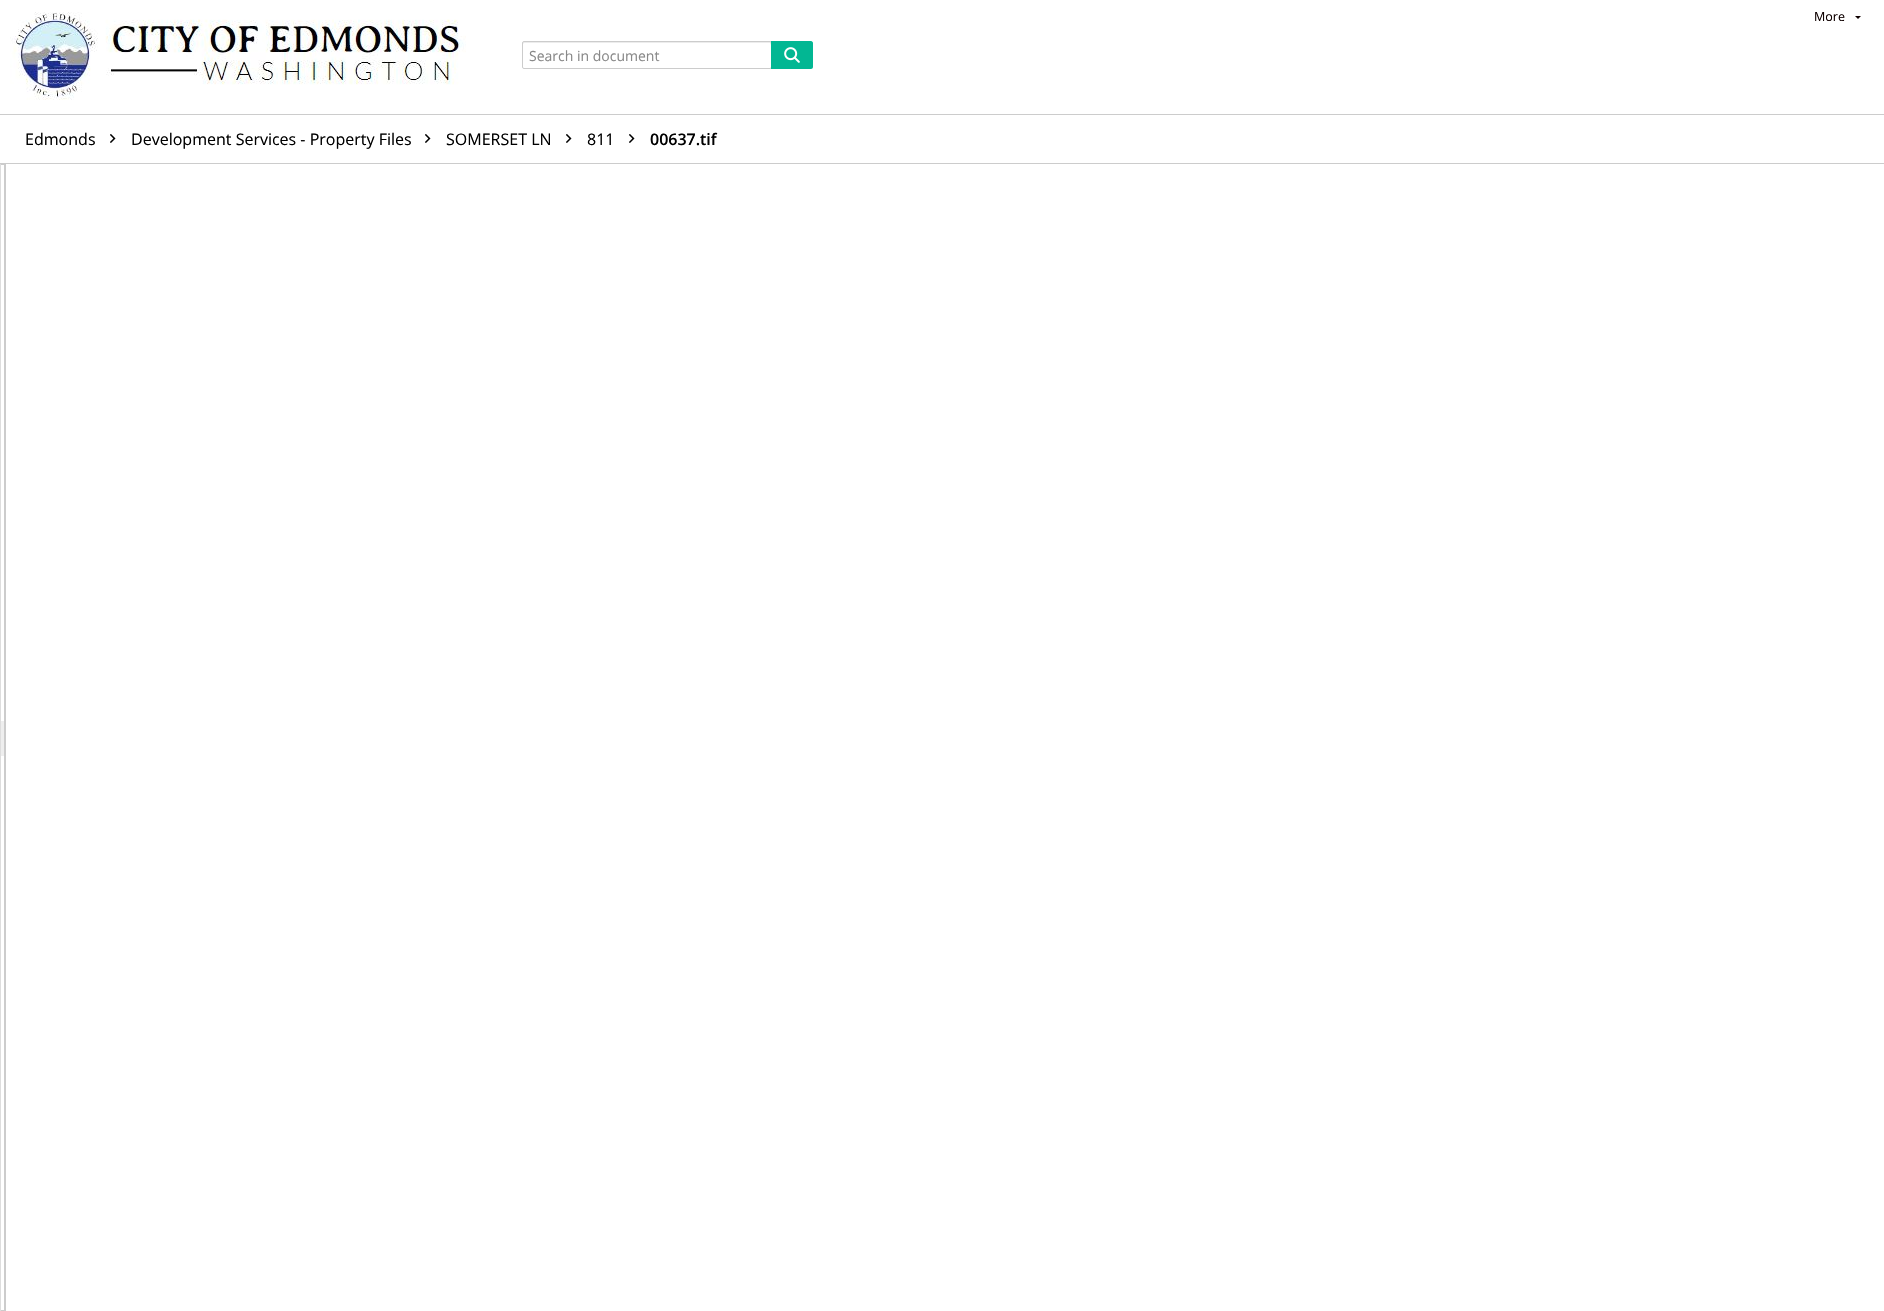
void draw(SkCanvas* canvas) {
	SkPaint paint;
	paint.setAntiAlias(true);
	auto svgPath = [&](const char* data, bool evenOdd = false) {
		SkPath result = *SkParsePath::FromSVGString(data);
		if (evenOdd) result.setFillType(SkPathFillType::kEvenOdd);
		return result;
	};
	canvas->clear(0xffffffff);
	paint.setColor(0xffcccccc);
	canvas->drawRect(SkRect::MakeXYWH(0, 114, 1884, 1), paint);
	canvas->drawImageRect(SkImages::DeferredFromEncodedData(SkData::MakeFromFileName("img1.png")), SkRect::MakeXYWH(10, 12, 456, 88), SkSamplingOptions());
	SkFont f1(fontMgr->matchFamilyStyle("Open Sans", SkFontStyle::Normal()), 12.5);
	f1.setSubpixel(true);
	paint.setColor(0xff0e0000);
	canvas->drawString("More", 1814, 21, f1, paint);
	canvas->drawPath(svgPath("M1855 16H1861L1858 19Z"), paint);
	paint.setColor(0xffececec);
	canvas->drawPath(svgPath("M524 43H770L771 45V43C771 42 771 42 770 42H524C523 42 523 42 523 43V44Z"), paint);
	paint.setStroke(true);
	paint.setStrokeWidth(1);
	paint.setColor(0xffcccccc);
	canvas->drawRoundRect(SkRect::MakeXYWH(522.5, 41.5, 249, 27), 1.5, 1.5, paint);
	SkFont f2(fontMgr->matchFamilyStyle("Open Sans", SkFontStyle::Normal()), 14);
	f2.setSubpixel(true);
	paint.setStroke(false);
	paint.setColor(0xff898989);
	canvas->drawString("Search in document", 529, 61, f2, paint);
	paint.setColor(0xff02b793);
	canvas->drawPath(svgPath("M771 41H811C812 41 813 42 813 43V67C813 68 812 69 811 69H771Z"), paint);
	canvas->drawImageRect(SkImages::DeferredFromEncodedData(SkData::MakeFromFileName("img2.png")), SkRect::MakeXYWH(784, 47, 16, 16), SkSamplingOptions());
	paint.setColor(0xffcccccc);
	canvas->drawRect(SkRect::MakeXYWH(0, 163, 1884, 1), paint);
	SkFont f3(fontMgr->matchFamilyStyle("Open Sans", SkFontStyle::Normal()), 16);
	f3.setSubpixel(true);
	paint.setColor(0xff000000);
	canvas->drawString("Edmonds", 25, 145, f3, paint);
	canvas->drawImageRect(SkImages::DeferredFromEncodedData(SkData::MakeFromFileName("img3.png")), SkRect::MakeXYWH(110, 134, 6, 9), SkSamplingOptions());
	canvas->drawString("Development Services - Property Files", 131, 145, f3, paint);
	canvas->drawImageRect(SkImages::DeferredFromEncodedData(SkData::MakeFromFileName("img3.png")), SkRect::MakeXYWH(425, 134, 6, 9), SkSamplingOptions());
	canvas->drawString("SOMERSET LN", 446, 145, f3, paint);
	canvas->drawImageRect(SkImages::DeferredFromEncodedData(SkData::MakeFromFileName("img3.png")), SkRect::MakeXYWH(566, 134, 6, 9), SkSamplingOptions());
	canvas->drawString("811", 587, 145, f3, paint);
	canvas->drawImageRect(SkImages::DeferredFromEncodedData(SkData::MakeFromFileName("img3.png")), SkRect::MakeXYWH(629, 134, 6, 9), SkSamplingOptions());
	SkFont f4(fontMgr->matchFamilyStyle("Open Sans", SkFontStyle(600, SkFontStyle::kNormal_Width, SkFontStyle::kUpright_Slant)), 16);
	f4.setSubpixel(true);
	canvas->drawString("00637.tif", 650, 145, f4, paint);
	paint.setColor(0xffcccccc);
	canvas->drawRect(SkRect::MakeXYWH(0, 164, 5, 1), paint);
	canvas->drawRect(SkRect::MakeXYWH(4, 164, 1, 1147), paint);
	canvas->drawRect(SkRect::MakeXYWH(0, 1310, 5, 1), paint);
	paint.setColor(0xffdddddd);
	canvas->drawRect(SkRect::MakeXYWH(0, 164, 1, 1147), paint);
	paint.setColor(0xffeeeeee);
	canvas->drawRect(SkRect::MakeXYWH(1, 721, 3, 35), paint);
	paint.setColor(0xffcccccc);
	canvas->drawRect(SkRect::MakeXYWH(5, 164, 1, 1147), paint);
}
